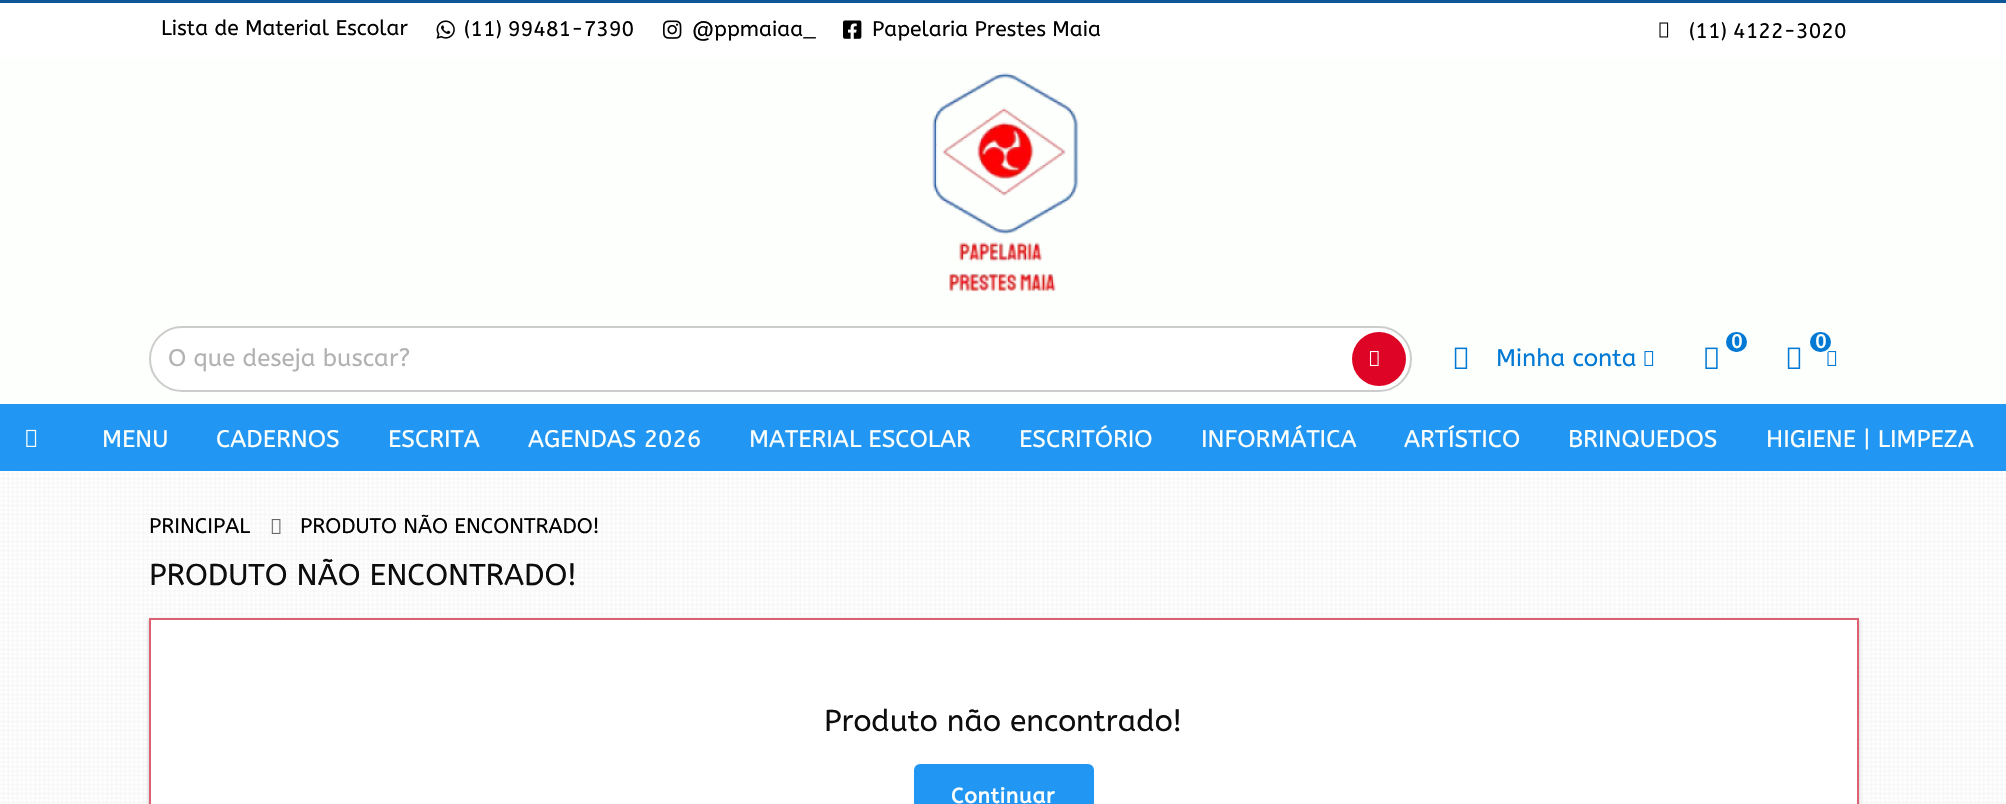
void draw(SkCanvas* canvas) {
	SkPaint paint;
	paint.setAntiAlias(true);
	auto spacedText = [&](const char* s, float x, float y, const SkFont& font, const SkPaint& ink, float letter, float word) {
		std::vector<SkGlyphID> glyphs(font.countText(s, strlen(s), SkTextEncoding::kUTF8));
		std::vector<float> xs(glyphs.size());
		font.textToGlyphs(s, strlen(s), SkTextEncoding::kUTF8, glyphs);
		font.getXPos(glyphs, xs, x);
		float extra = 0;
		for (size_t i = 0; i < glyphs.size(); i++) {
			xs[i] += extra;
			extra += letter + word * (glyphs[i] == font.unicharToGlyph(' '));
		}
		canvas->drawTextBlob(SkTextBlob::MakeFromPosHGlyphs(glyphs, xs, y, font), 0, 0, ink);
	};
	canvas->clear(0xffffffff);
	canvas->drawImageRect(SkImages::DeferredFromEncodedData(SkData::MakeFromFileName("img1.png")), SkRect::MakeXYWH(0, 471, 2006, 333), SkSamplingOptions());
	paint.setColor(0xff0f5699);
	canvas->drawRect(SkRect::MakeXYWH(0, 0, 2006, 3), paint);
	SkFont f1(fontMgr->matchFamilyStyle("ABeeZee", SkFontStyle::Normal()), 21);
	f1.setSubpixel(true);
	paint.setColor(0xff000000);
	canvas->drawString("Lista de Material Escolar", 161, 35, f1, paint);
	canvas->drawImageRect(SkImages::DeferredFromEncodedData(SkData::MakeFromFileName("img2.png")), SkRect::MakeXYWH(436, 20, 19, 19), SkSamplingOptions());
	canvas->drawString("(11) 99481-7390", 464, 36, f1, paint);
	canvas->drawImageRect(SkImages::DeferredFromEncodedData(SkData::MakeFromFileName("img3.png")), SkRect::MakeXYWH(663, 20, 19, 19), SkSamplingOptions());
	canvas->drawString("@ppmaiaa_", 692, 36, f1, paint);
	canvas->drawImageRect(SkImages::DeferredFromEncodedData(SkData::MakeFromFileName("img4.png")), SkRect::MakeXYWH(843, 20, 19, 19), SkSamplingOptions());
	canvas->drawString("Papelaria Prestes Maia", 872, 36, f1, paint);
	canvas->drawImageRect(SkImages::DeferredFromEncodedData(SkData::MakeFromFileName("img5.png")), SkRect::MakeXYWH(1659, 22, 10, 16), SkSamplingOptions());
	canvas->drawString("(11) 4122-3020", 1689, 38, f1, paint);
	paint.setColor(0xfffdfffc);
	canvas->drawRect(SkRect::MakeXYWH(0, 59, 2006, 345), paint);
	paint.setColor(0xff2196f3);
	canvas->drawRect(SkRect::MakeXYWH(0, 404, 2006, 67), paint);
	canvas->drawImageRect(SkImages::DeferredFromEncodedData(SkData::MakeFromFileName("img6.png")), SkRect::MakeXYWH(932, 72, 147, 220), SkSamplingOptions());
	paint.setColor(0xffffffff);
	canvas->drawRoundRect(SkRect::MakeXYWH(150, 327, 1261, 64), 32, 32, paint);
	paint.setStroke(true);
	paint.setStrokeWidth(2);
	paint.setColor(0xffcccccc);
	canvas->drawRoundRect(SkRect::MakeXYWH(150, 327, 1261, 64), 32, 32, paint);
	SkFont f2(fontMgr->matchFamilyStyle("ABeeZee", SkFontStyle::Normal()), 24);
	f2.setSubpixel(true);
	paint.setStroke(false);
	paint.setColor(0xffb2b2b2);
	canvas->drawString("O que deseja buscar?", 168, 366, f2, paint);
	paint.setColor(0xffdd0426);
	canvas->drawCircle(1379, 359, 27, paint);
	canvas->drawImageRect(SkImages::DeferredFromEncodedData(SkData::MakeFromFileName("img7.png")), SkRect::MakeXYWH(1369, 351, 10, 15), SkSamplingOptions());
	paint.setColor(0xff0179d5);
	canvas->drawRoundRect(SkRect::MakeXYWH(1725, 331, 23, 22), 11, 11, paint);
	paint.setStroke(true);
	paint.setColor(0xfffdfffc);
	canvas->drawRoundRect(SkRect::MakeXYWH(1725, 331, 23, 22), 11, 11, paint);
	SkFont f3(fontMgr->matchFamilyStyle("ABeeZee", SkFontStyle::Bold()), 19);
	f3.setSubpixel(true);
	paint.setStroke(false);
	canvas->drawString("0", 1731, 348, f3, paint);
	canvas->drawImageRect(SkImages::DeferredFromEncodedData(SkData::MakeFromFileName("img8.png")), SkRect::MakeXYWH(1705, 347, 13, 22), SkSamplingOptions());
	canvas->drawImageRect(SkImages::DeferredFromEncodedData(SkData::MakeFromFileName("img10.png")), SkRect::MakeXYWH(1827, 351, 10, 15), SkSamplingOptions());
	paint.setColor(0xff0179d5);
	canvas->drawRoundRect(SkRect::MakeXYWH(1809, 331, 23, 22), 11, 11, paint);
	paint.setStroke(true);
	paint.setColor(0xfffdfffc);
	canvas->drawRoundRect(SkRect::MakeXYWH(1809, 331, 23, 22), 11, 11, paint);
	paint.setStroke(false);
	canvas->drawString("0", 1815, 348, f3, paint);
	canvas->drawImageRect(SkImages::DeferredFromEncodedData(SkData::MakeFromFileName("img9.png")), SkRect::MakeXYWH(1787, 347, 14, 22), SkSamplingOptions());
	canvas->drawImageRect(SkImages::DeferredFromEncodedData(SkData::MakeFromFileName("img9.png")), SkRect::MakeXYWH(1454, 347, 14, 22), SkSamplingOptions());
	paint.setColor(0xff0179d5);
	canvas->drawString("Minha conta", 1496, 366, f2, paint);
	canvas->drawImageRect(SkImages::DeferredFromEncodedData(SkData::MakeFromFileName("img10.png")), SkRect::MakeXYWH(1644, 351, 10, 15), SkSamplingOptions());
	canvas->drawImageRect(SkImages::DeferredFromEncodedData(SkData::MakeFromFileName("img11.png")), SkRect::MakeXYWH(26, 429, 11, 18), SkSamplingOptions());
	paint.setColor(0xfffdfffc);
	canvas->drawString("MENU", 102, 447, f2, paint);
	canvas->drawString("CADERNOS", 216, 447, f2, paint);
	canvas->drawString("ESCRITA", 388, 447, f2, paint);
	canvas->drawString("AGENDAS 2026", 528, 447, f2, paint);
	canvas->drawString("MATERIAL ESCOLAR", 749, 447, f2, paint);
	canvas->drawString("ESCRITÓRIO", 1019, 447, f2, paint);
	canvas->drawString("INFORMÁTICA", 1201, 447, f2, paint);
	canvas->drawString("ARTÍSTICO", 1404, 447, f2, paint);
	canvas->drawString("BRINQUEDOS", 1568, 447, f2, paint);
	canvas->drawString("HIGIENE | LIMPEZA", 1766, 447, f2, paint);
	paint.setColor(0xff000000);
	canvas->drawString("PRINCIPAL", 149, 533, f1, paint);
	canvas->drawImageRect(SkImages::DeferredFromEncodedData(SkData::MakeFromFileName("img12.png")), SkRect::MakeXYWH(271, 519, 10, 15), SkSamplingOptions());
	canvas->drawString("PRODUTO NÃO ENCONTRADO!", 300, 533, f1, paint);
	SkFont f4(fontMgr->matchFamilyStyle("ABeeZee", SkFontStyle::Normal()), 30);
	f4.setSubpixel(true);
	paint.setColor(0xff0d0d0d);
	canvas->drawString("PRODUTO NÃO ENCONTRADO!", 149, 585, f4, paint);
	paint.setColor(0x1f000000);
	paint.setMaskFilter(SkMaskFilter::MakeBlur(kNormal_SkBlurStyle, 2));
	canvas->drawRect(SkRect::MakeXYWH(149, 620, 1710, 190), paint);
	paint.setMaskFilter(nullptr);
	paint.setColor(0x24000000);
	paint.setMaskFilter(SkMaskFilter::MakeBlur(kNormal_SkBlurStyle, 1));
	canvas->drawRect(SkRect::MakeXYWH(149, 620, 1710, 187), paint);
	paint.setMaskFilter(nullptr);
	paint.setColor(0xffffffff);
	canvas->drawRect(SkRect::MakeXYWH(150, 619, 1708, 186), paint);
	paint.setStroke(true);
	paint.setColor(0xffdb6173);
	canvas->drawRect(SkRect::MakeXYWH(150, 619, 1708, 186), paint);
	paint.setStroke(false);
	paint.setColor(0xff0d0d0d);
	canvas->drawString("Produto não encontrado!", 824, 731, f4, paint);
	paint.setColor(0xff2196f3);
	canvas->drawRoundRect(SkRect::MakeXYWH(914, 764, 180, 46), 6, 6, paint);
	SkFont f5(fontMgr->matchFamilyStyle("ABeeZee", SkFontStyle::Bold()), 21);
	f5.setSubpixel(true);
	paint.setColor(0xfffdfffc);
	spacedText("Continuar", 951, 803, f5, paint, 0.75, 0);
}
